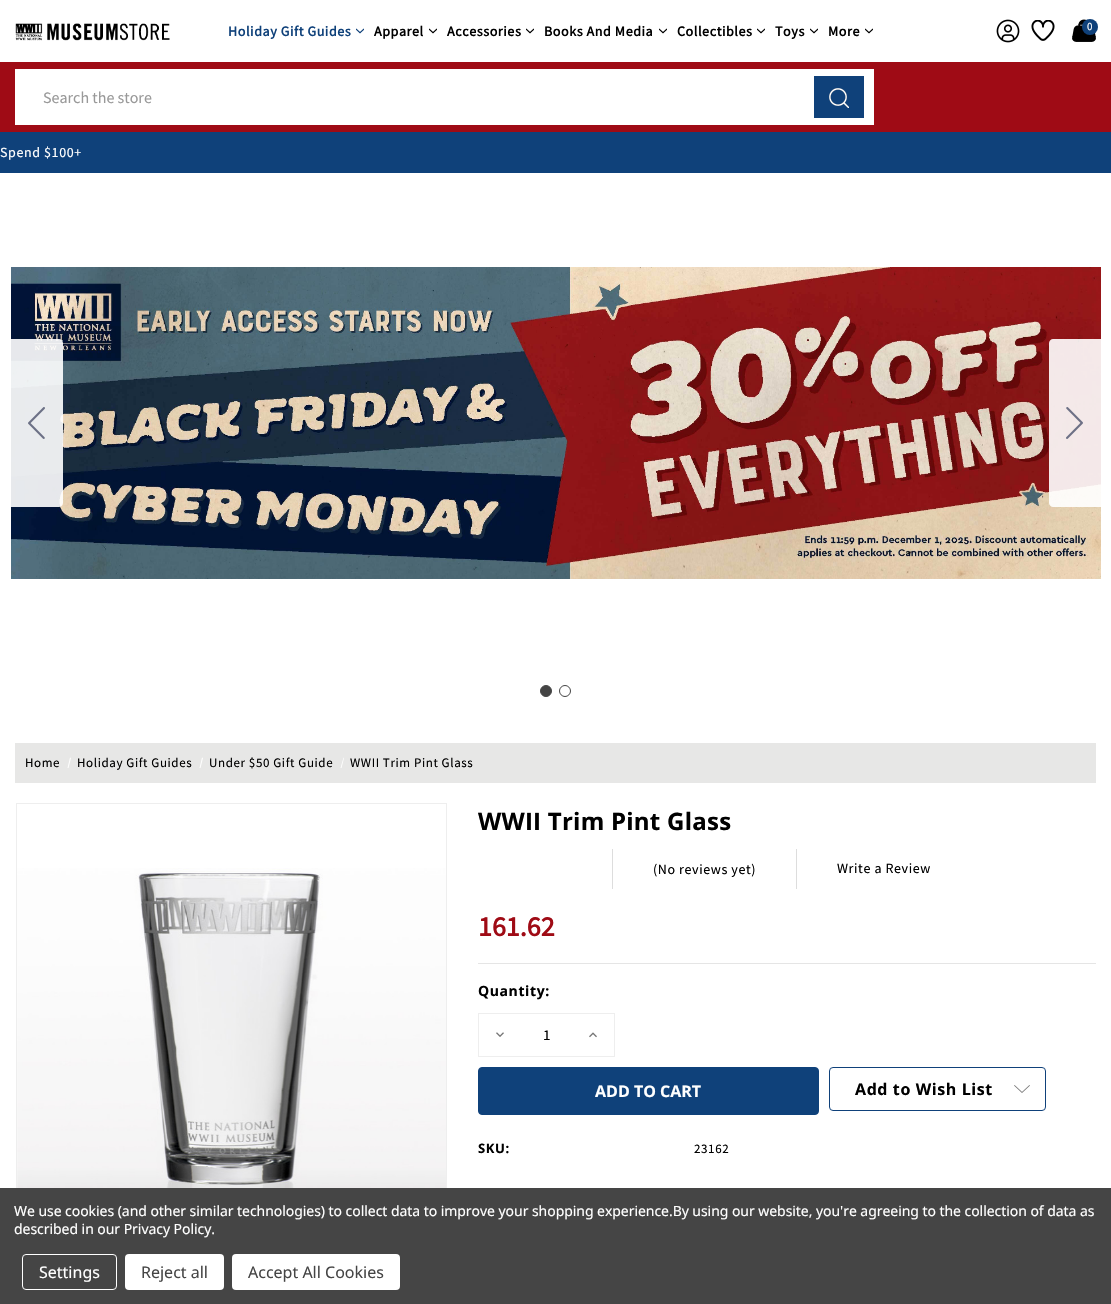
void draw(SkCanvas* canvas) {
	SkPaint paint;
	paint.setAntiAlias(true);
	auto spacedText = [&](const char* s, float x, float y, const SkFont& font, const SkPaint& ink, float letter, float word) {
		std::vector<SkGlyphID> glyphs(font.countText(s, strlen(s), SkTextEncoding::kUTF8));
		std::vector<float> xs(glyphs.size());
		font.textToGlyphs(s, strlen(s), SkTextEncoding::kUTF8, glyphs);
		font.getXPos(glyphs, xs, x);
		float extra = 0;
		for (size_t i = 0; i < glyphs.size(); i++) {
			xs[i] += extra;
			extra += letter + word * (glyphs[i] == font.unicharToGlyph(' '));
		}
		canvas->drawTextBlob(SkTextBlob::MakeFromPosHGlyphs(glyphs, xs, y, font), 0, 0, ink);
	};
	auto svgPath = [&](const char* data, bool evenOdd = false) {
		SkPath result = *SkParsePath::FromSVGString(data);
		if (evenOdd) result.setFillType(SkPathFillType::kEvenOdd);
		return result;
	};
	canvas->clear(0xffffffff);
	canvas->drawImageRect(SkImages::DeferredFromEncodedData(SkData::MakeFromFileName("img1.png")), SkRect::MakeXYWH(15, 23, 155, 18), SkSamplingOptions());
	SkFont f1(fontMgr->matchFamilyStyle("Source Sans Pro", SkFontStyle::Bold()), 14);
	f1.setSubpixel(true);
	paint.setColor(0xff0f417a);
	spacedText("Holiday Gift Guides", 228, 36, f1, paint, 0.6, 0);
	canvas->drawImageRect(SkImages::DeferredFromEncodedData(SkData::MakeFromFileName("img2.png")), SkRect::MakeXYWH(356, 28, 8, 6), SkSamplingOptions());
	paint.setColor(0xff000000);
	spacedText("Apparel", 374, 36, f1, paint, 0.6, 0);
	canvas->drawImageRect(SkImages::DeferredFromEncodedData(SkData::MakeFromFileName("img3.png")), SkRect::MakeXYWH(429, 28, 8, 6), SkSamplingOptions());
	spacedText("Accessories", 447, 36, f1, paint, 0.6, 0);
	canvas->drawImageRect(SkImages::DeferredFromEncodedData(SkData::MakeFromFileName("img3.png")), SkRect::MakeXYWH(526, 28, 8, 6), SkSamplingOptions());
	spacedText("Books And Media", 544, 36, f1, paint, 0.6, 0);
	canvas->drawImageRect(SkImages::DeferredFromEncodedData(SkData::MakeFromFileName("img3.png")), SkRect::MakeXYWH(659, 28, 8, 6), SkSamplingOptions());
	spacedText("Collectibles", 677, 36, f1, paint, 0.6, 0);
	canvas->drawImageRect(SkImages::DeferredFromEncodedData(SkData::MakeFromFileName("img3.png")), SkRect::MakeXYWH(757, 28, 8, 6), SkSamplingOptions());
	spacedText("Toys", 775, 36, f1, paint, 0.6, 0);
	canvas->drawImageRect(SkImages::DeferredFromEncodedData(SkData::MakeFromFileName("img3.png")), SkRect::MakeXYWH(810, 28, 8, 6), SkSamplingOptions());
	spacedText("More", 828, 36, f1, paint, 0.6, 0);
	canvas->drawImageRect(SkImages::DeferredFromEncodedData(SkData::MakeFromFileName("img3.png")), SkRect::MakeXYWH(865, 28, 8, 6), SkSamplingOptions());
	canvas->drawImageRect(SkImages::DeferredFromEncodedData(SkData::MakeFromFileName("img4.png")), SkRect::MakeXYWH(996, 19, 24, 24), SkSamplingOptions());
	canvas->drawImageRect(SkImages::DeferredFromEncodedData(SkData::MakeFromFileName("img5.png")), SkRect::MakeXYWH(1031, 20, 24, 21), SkSamplingOptions());
	canvas->drawImageRect(SkImages::DeferredFromEncodedData(SkData::MakeFromFileName("img6.png")), SkRect::MakeXYWH(1072, 19, 24, 23), SkSamplingOptions());
	paint.setColor(0xff0f417a);
	canvas->drawCircle(1090, 27, 8, paint);
	SkFont f2(fontMgr->matchFamilyStyle("Source Sans Pro", SkFontStyle::Normal()), 11);
	f2.setSubpixel(true);
	paint.setColor(0xffffffff);
	canvas->drawString("0", 1087, 30, f2, paint);
	paint.setColor(0xff9f0b15);
	canvas->drawRect(SkRect::MakeXYWH(0, 62, 1111, 70), paint);
	paint.setColor(0xffffffff);
	canvas->drawRect(SkRect::MakeXYWH(15, 69, 859, 56), paint);
	SkFont f3(fontMgr->matchFamilyStyle("Source Sans Pro", SkFontStyle::Normal()), 16);
	f3.setSubpixel(true);
	paint.setColor(0xff999999);
	canvas->drawString("Search the store", 43, 103, f3, paint);
	paint.setColor(0xff0f417a);
	canvas->drawRect(SkRect::MakeXYWH(814, 76, 50, 42), paint);
	canvas->drawImageRect(SkImages::DeferredFromEncodedData(SkData::MakeFromFileName("img7.png")), SkRect::MakeXYWH(829, 88, 20, 20), SkSamplingOptions());
	canvas->drawRect(SkRect::MakeXYWH(0, 132, 1111, 41), paint);
	SkFont f4(fontMgr->matchFamilyStyle("Source Sans Pro", SkFontStyle::Normal()), 14);
	f4.setSubpixel(true);
	paint.setColor(0xffffffff);
	spacedText("Spend $100+", 0, 157, f4, paint, 0.6, 0);
	canvas->drawImageRect(SkImages::DeferredFromEncodedData(SkData::MakeFromFileName("img8.png")), SkRect::MakeXYWH(11, 267, 1090, 312), SkSamplingOptions());
	paint.setColor(0xe6ffffff);
	canvas->drawPath(svgPath("M11 339H59C61 339 63 341 63 343V503C63 505 61 507 59 507H11Z"), paint);
	canvas->drawImageRect(SkImages::DeferredFromEncodedData(SkData::MakeFromFileName("img9.png")), SkRect::MakeXYWH(28, 407, 17, 32), SkSamplingOptions());
	canvas->drawPath(svgPath("M1053 339H1101V507H1053C1051 507 1049 505 1049 503V343C1049 341 1051 339 1053 339Z"), paint);
	canvas->drawImageRect(SkImages::DeferredFromEncodedData(SkData::MakeFromFileName("img10.png")), SkRect::MakeXYWH(1066, 407, 17, 32), SkSamplingOptions());
	paint.setColor(0xff444444);
	canvas->drawCircle(546, 691, 5.5, paint);
	paint.setStroke(true);
	paint.setStrokeWidth(1);
	canvas->drawCircle(546, 691, 5.5, paint);
	canvas->drawCircle(565, 691, 5.5, paint);
	paint.setStroke(false);
	paint.setColor(0xffe7e7e6);
	canvas->drawRect(SkRect::MakeXYWH(15, 743, 1081, 40), paint);
	SkFont f5(fontMgr->matchFamilyStyle("Source Sans Pro", SkFontStyle::Normal()), 13);
	f5.setSubpixel(true);
	paint.setColor(0xff000000);
	spacedText("Home", 25, 767, f5, paint, 0.6, 0);
	paint.setColor(0xffffffff);
	canvas->drawPath(svgPath("M70 757.5L71 758L68.5 768H67.5Z"), paint);
	paint.setColor(0xff000000);
	spacedText("Holiday Gift Guides", 77, 767, f5, paint, 0.6, 0);
	paint.setColor(0xffffffff);
	canvas->drawPath(svgPath("M202 757.5L203 758L200.5 768H199.5Z"), paint);
	paint.setColor(0xff000000);
	spacedText("Under $50 Gift Guide", 209, 767, f5, paint, 0.6, 0);
	paint.setColor(0xffffffff);
	canvas->drawPath(svgPath("M343.5 757.5L344 758L341.5 768H340.5Z"), paint);
	paint.setColor(0xff000000);
	spacedText("WWII Trim Pint Glass", 350, 767, f5, paint, 0.6, 0);
	paint.setStroke(true);
	paint.setColor(0xffeeeeee);
	canvas->drawRect(SkRect::MakeXYWH(16.5, 803.5, 430, 429), paint);
	canvas->drawImageRect(SkImages::DeferredFromEncodedData(SkData::MakeFromFileName("img11.png")), SkRect::MakeXYWH(17, 868, 429, 320), SkSamplingOptions());
	SkFont f6(fontMgr->matchFamilyStyle("Open Sans", SkFontStyle::Bold()), 24);
	f6.setSubpixel(true);
	paint.setStroke(false);
	paint.setColor(0xff000000);
	spacedText("WWII Trim Pint Glass", 478, 830, f6, paint, 0.25, 0);
	paint.setColor(0xffdddddd);
	canvas->drawRect(SkRect::MakeXYWH(796, 849, 1, 40), paint);
	canvas->drawRect(SkRect::MakeXYWH(612, 849, 1, 40), paint);
	paint.setColor(0xff000000);
	spacedText("(No reviews yet)", 653, 874, f4, paint, 0.6, 0);
	spacedText("Write a Review", 837, 873, f4, paint, 0.6, 0);
	SkFont f7(fontMgr->matchFamilyStyle("Source Sans Pro", SkFontStyle::Bold()), 28);
	f7.setSubpixel(true);
	paint.setColor(0xff9f0b15);
	canvas->drawString("161.62", 478, 936, f7, paint);
	paint.setColor(0xffe5e5e5);
	canvas->drawRect(SkRect::MakeXYWH(478, 963, 618, 1), paint);
	SkFont f8(fontMgr->matchFamilyStyle("Open Sans", SkFontStyle::Bold()), 14);
	f8.setSubpixel(true);
	paint.setColor(0xff000000);
	spacedText("Quantity:", 478, 996, f8, paint, 0.6, 0);
	paint.setStroke(true);
	paint.setColor(0xffeeeeee);
	canvas->drawRect(SkRect::MakeXYWH(478.5, 1013.5, 136, 43), paint);
	canvas->drawImageRect(SkImages::DeferredFromEncodedData(SkData::MakeFromFileName("img12.png")), SkRect::MakeXYWH(496, 1032, 8, 5), SkSamplingOptions());
	SkFont f9(fontMgr->matchFamilyStyle("Source Sans Pro", SkFontStyle::Normal()), 15);
	f9.setSubpixel(true);
	paint.setStroke(false);
	paint.setColor(0xff000000);
	canvas->drawString("1", 543, 1040, f9, paint);
	canvas->drawImageRect(SkImages::DeferredFromEncodedData(SkData::MakeFromFileName("img13.png")), SkRect::MakeXYWH(589, 1032, 8, 6), SkSamplingOptions());
	paint.setColor(0xff0f417a);
	canvas->drawRoundRect(SkRect::MakeXYWH(478.5, 1067.5, 340, 47), 3.5, 3.5, paint);
	paint.setStroke(true);
	canvas->drawRoundRect(SkRect::MakeXYWH(478.5, 1067.5, 340, 47), 3.5, 3.5, paint);
	SkFont f10(fontMgr->matchFamilyStyle("Open Sans", SkFontStyle::Bold()), 16);
	f10.setSubpixel(true);
	paint.setStroke(false);
	paint.setColor(0xffffffff);
	canvas->drawString("ADD TO CART", 595, 1097, f10, paint);
	paint.setStroke(true);
	paint.setColor(0xff0f417a);
	canvas->drawRoundRect(SkRect::MakeXYWH(829.5, 1067.5, 216, 43), 3.5, 3.5, paint);
	paint.setStroke(false);
	paint.setColor(0xff000000);
	spacedText("Add to Wish List", 855, 1095, f10, paint, 0.6, 0);
	canvas->drawImageRect(SkImages::DeferredFromEncodedData(SkData::MakeFromFileName("img14.png")), SkRect::MakeXYWH(1014, 1085, 16, 8), SkSamplingOptions());
	SkFont f11(fontMgr->matchFamilyStyle("Open Sans", SkFontStyle::Bold()), 13);
	f11.setSubpixel(true);
	spacedText("SKU:", 478, 1153, f11, paint, 0.6, 0);
	spacedText("23162", 694, 1153, f5, paint, 0.6, 0);
	paint.setColor(0xff454545);
	canvas->drawRect(SkRect::MakeXYWH(0, 1188, 1111, 116), paint);
	SkFont f12(fontMgr->matchFamilyStyle("Noto Sans", SkFontStyle::Normal()), 14);
	f12.setSubpixel(true);
	paint.setColor(0xffffffff);
	spacedText("We use cookies (and other similar technologies) to collect data to improve your shopping experience.By using our website, you're agreeing to the collection of data as", 14, 1216, f12, paint, -0.05, 0);
	spacedText("described in our Privacy Policy.", 14, 1234, f12, paint, -0.05, 0);
	paint.setStroke(true);
	canvas->drawRoundRect(SkRect::MakeXYWH(22.5, 1254.5, 94, 35), 3.5, 3.5, paint);
	SkFont f13(fontMgr->matchFamilyStyle("Noto Sans", SkFontStyle::Normal()), 16);
	f13.setSubpixel(true);
	paint.setStroke(false);
	canvas->drawString("Settings", 39, 1278, f13, paint);
	canvas->drawRoundRect(SkRect::MakeXYWH(125, 1254, 99, 36), 4, 4, paint);
	paint.setColor(0xff454545);
	canvas->drawString("Reject all", 141, 1278, f13, paint);
	paint.setColor(0xffffffff);
	canvas->drawRoundRect(SkRect::MakeXYWH(232, 1254, 168, 36), 4, 4, paint);
	paint.setColor(0xff454545);
	canvas->drawString("Accept All Cookies", 248, 1278, f13, paint);
}
